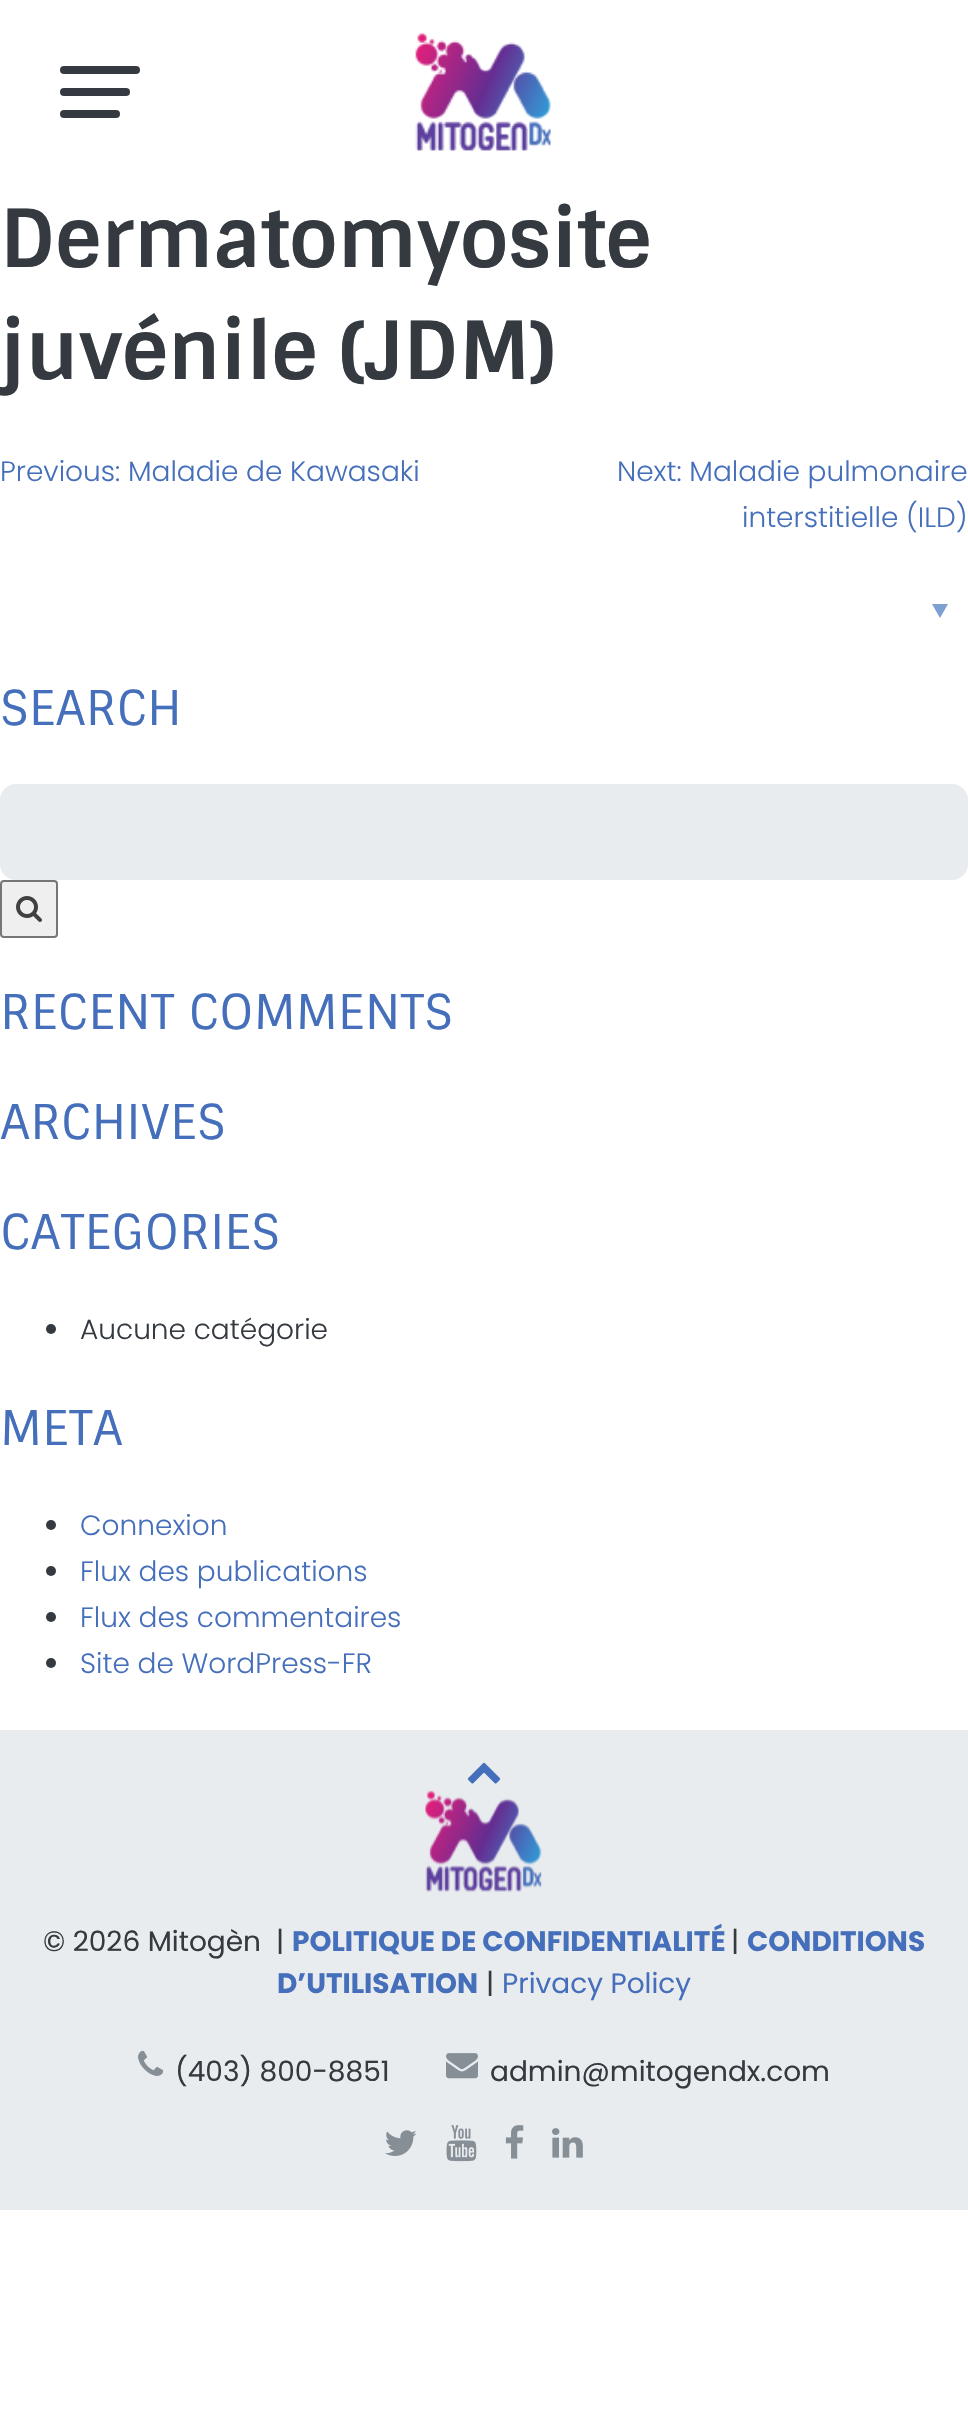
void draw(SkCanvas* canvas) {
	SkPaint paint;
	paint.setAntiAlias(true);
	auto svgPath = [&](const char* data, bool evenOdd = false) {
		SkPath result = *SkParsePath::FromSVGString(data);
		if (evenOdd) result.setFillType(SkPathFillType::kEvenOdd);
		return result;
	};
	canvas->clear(0xffffffff);
	paint.setColor(0xff343a40);
	canvas->drawRoundRect(SkRect::MakeXYWH(60, 66, 80, 8), 4, 4, paint);
	canvas->drawRoundRect(SkRect::MakeXYWH(60, 88, 70, 8), 4, 4, paint);
	canvas->drawRoundRect(SkRect::MakeXYWH(60, 110, 60, 8), 4, 4, paint);
	canvas->drawImageRect(SkImages::DeferredFromEncodedData(SkData::MakeFromFileName("img1.png")), SkRect::MakeXYWH(415, 33, 136, 118), SkSamplingOptions());
	SkFont f1(fontMgr->matchFamilyStyle("Sintony", SkFontStyle::Bold()), 80);
	f1.setSubpixel(true);
	canvas->drawString("Dermatomyosite", 0, 267, f1, paint);
	canvas->drawString("juvénile (JDM)", 0, 379, f1, paint);
	SkFont f2(fontMgr->matchFamilyStyle("Poppins", SkFontStyle(300, SkFontStyle::kNormal_Width, SkFontStyle::kUpright_Slant)), 28);
	f2.setSubpixel(true);
	paint.setColor(0xff456fbb);
	canvas->drawString("Previous: Maladie de Kawasaki", 0, 481, f2, paint);
	canvas->drawString("Next: Maladie pulmonaire", 617, 481, f2, paint);
	canvas->drawString("interstitielle (ILD)", 742, 527, f2, paint);
	paint.setColor(0xff7e9fd2);
	canvas->drawPath(svgPath("M932 604H948L940 618Z"), paint);
	SkFont f3(fontMgr->matchFamilyStyle("Sintony", SkFontStyle::Normal()), 48);
	f3.setSubpixel(true);
	paint.setColor(0xff456fbb);
	canvas->drawString("SEARCH", 0, 725, f3, paint);
	paint.setColor(0xffe9ecef);
	canvas->drawRoundRect(SkRect::MakeXYWH(1, 785, 966, 94), 15, 15, paint);
	paint.setStroke(true);
	paint.setStrokeWidth(2);
	canvas->drawRoundRect(SkRect::MakeXYWH(1, 785, 966, 94), 15, 15, paint);
	paint.setStroke(false);
	paint.setColor(0xffefefef);
	canvas->drawRoundRect(SkRect::MakeXYWH(1, 881, 56, 56), 3, 3, paint);
	paint.setStroke(true);
	paint.setColor(0xff767676);
	canvas->drawRoundRect(SkRect::MakeXYWH(1, 881, 56, 56), 3, 3, paint);
	canvas->drawImageRect(SkImages::DeferredFromEncodedData(SkData::MakeFromFileName("img2.png")), SkRect::MakeXYWH(16, 896, 26, 26), SkSamplingOptions());
	paint.setStroke(false);
	paint.setColor(0xff456fbb);
	canvas->drawString("RECENT COMMENTS", 0, 1029, f3, paint);
	canvas->drawString("ARCHIVES", 0, 1139, f3, paint);
	canvas->drawString("CATEGORIES", 0, 1249, f3, paint);
	paint.setColor(0xff343a40);
	canvas->drawCircle(51, 1329, 5, paint);
	canvas->drawString("Aucune catégorie", 80, 1339, f2, paint);
	paint.setColor(0xff456fbb);
	canvas->drawString("META", 0, 1445, f3, paint);
	paint.setColor(0xff343a40);
	canvas->drawCircle(51, 1525, 5, paint);
	paint.setColor(0xff456fbb);
	canvas->drawString("Connexion", 80, 1535, f2, paint);
	paint.setColor(0xff343a40);
	canvas->drawCircle(51, 1571, 5, paint);
	paint.setColor(0xff456fbb);
	canvas->drawString("Flux des publications", 80, 1581, f2, paint);
	paint.setColor(0xff343a40);
	canvas->drawCircle(51, 1617, 5, paint);
	paint.setColor(0xff456fbb);
	canvas->drawString("Flux des commentaires", 80, 1627, f2, paint);
	paint.setColor(0xff343a40);
	canvas->drawCircle(51, 1663, 5, paint);
	paint.setColor(0xff456fbb);
	canvas->drawString("Site de WordPress-FR", 80, 1673, f2, paint);
	paint.setColor(0xffe9ecef);
	canvas->drawRect(SkRect::MakeXYWH(0, 1730, 968, 480), paint);
	canvas->drawImageRect(SkImages::DeferredFromEncodedData(SkData::MakeFromFileName("img3.png")), SkRect::MakeXYWH(467, 1762, 34, 22), SkSamplingOptions());
	canvas->drawImageRect(SkImages::DeferredFromEncodedData(SkData::MakeFromFileName("img4.png")), SkRect::MakeXYWH(425, 1790, 117, 102), SkSamplingOptions());
	SkFont f4(fontMgr->matchFamilyStyle("Poppins", SkFontStyle::Normal()), 28);
	f4.setSubpixel(true);
	paint.setColor(0xff343a40);
	canvas->drawString("© 2026 Mitogèn  |", 43, 1951, f4, paint);
	SkFont f5(fontMgr->matchFamilyStyle("Poppins", SkFontStyle::Bold()), 28);
	f5.setSubpixel(true);
	paint.setColor(0xff456fbb);
	canvas->drawString("POLITIQUE DE CONFIDENTIALITÉ", 292, 1951, f5, paint);
	paint.setColor(0xff343a40);
	canvas->drawString("|", 731, 1951, f4, paint);
	paint.setColor(0xff456fbb);
	canvas->drawString("CONDITIONS", 747, 1951, f5, paint);
	canvas->drawString("D’UTILISATION", 277, 1993, f5, paint);
	paint.setColor(0xff343a40);
	canvas->drawString("|", 486, 1993, f4, paint);
	paint.setColor(0xff456fbb);
	canvas->drawString("Privacy Policy", 502, 1993, f4, paint);
	canvas->drawImageRect(SkImages::DeferredFromEncodedData(SkData::MakeFromFileName("img5.png")), SkRect::MakeXYWH(138, 2050, 26, 26), SkSamplingOptions());
	paint.setColor(0xff343a40);
	canvas->drawString("(403) 800-8851", 175, 2081, f4, paint);
	canvas->drawImageRect(SkImages::DeferredFromEncodedData(SkData::MakeFromFileName("img6.png")), SkRect::MakeXYWH(446, 2053, 32, 26), SkSamplingOptions());
	canvas->drawString("admin@mitogendx.com", 490, 2081, f4, paint);
	canvas->drawImageRect(SkImages::DeferredFromEncodedData(SkData::MakeFromFileName("img7.png")), SkRect::MakeXYWH(385, 2130, 32, 26), SkSamplingOptions());
	canvas->drawImageRect(SkImages::DeferredFromEncodedData(SkData::MakeFromFileName("img8.png")), SkRect::MakeXYWH(446, 2125, 31, 37), SkSamplingOptions());
	canvas->drawImageRect(SkImages::DeferredFromEncodedData(SkData::MakeFromFileName("img9.png")), SkRect::MakeXYWH(505, 2125, 19, 34), SkSamplingOptions());
	canvas->drawImageRect(SkImages::DeferredFromEncodedData(SkData::MakeFromFileName("img10.png")), SkRect::MakeXYWH(552, 2128, 31, 30), SkSamplingOptions());
}
